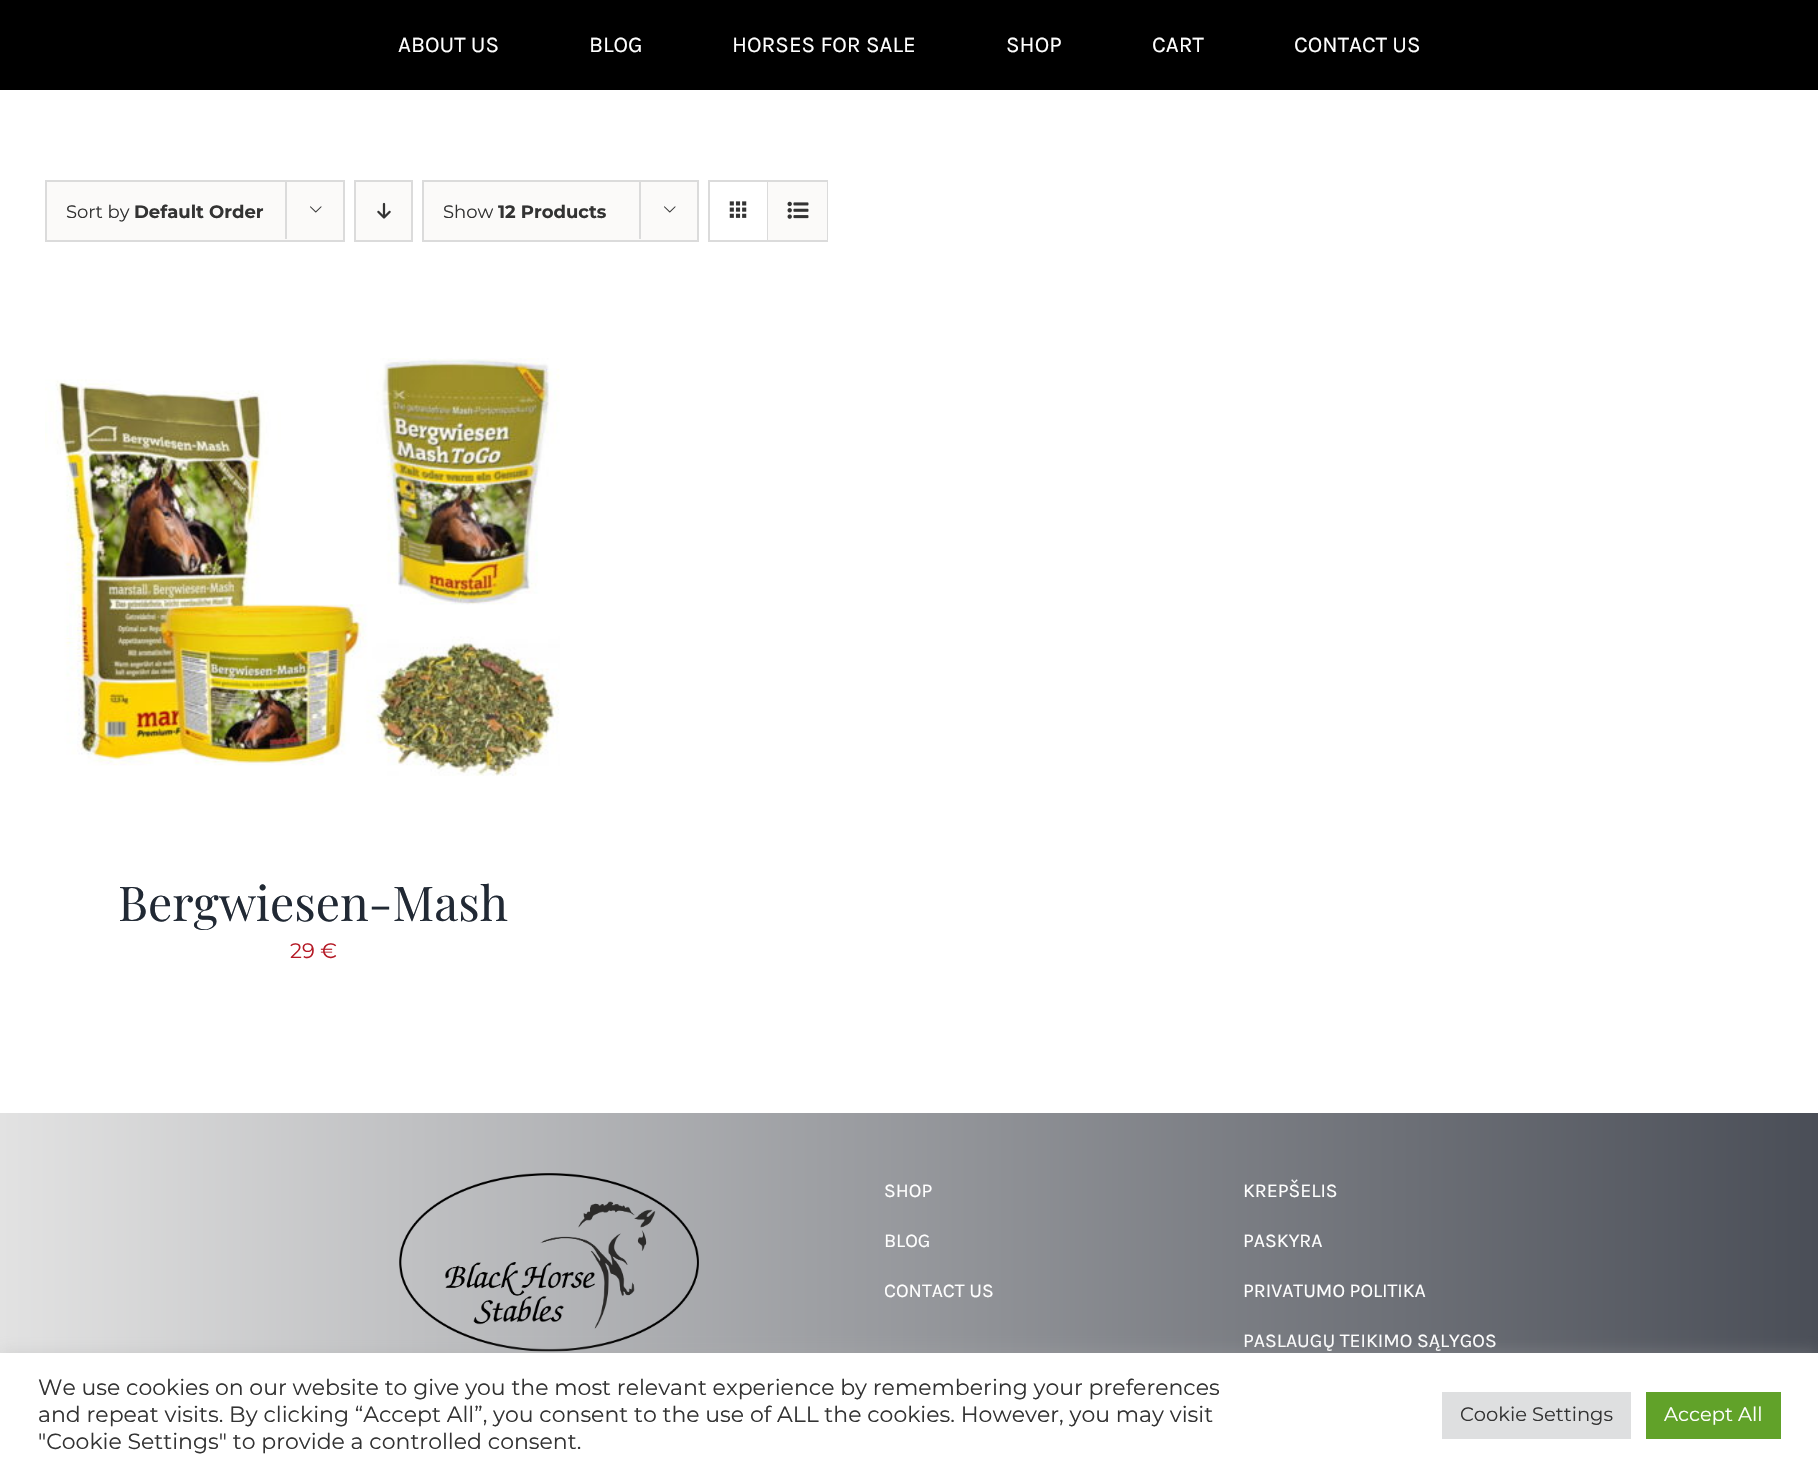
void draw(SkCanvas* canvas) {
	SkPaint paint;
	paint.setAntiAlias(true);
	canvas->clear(0xffffffff);
	paint.setColor(0xff000000);
	canvas->drawRect(SkRect::MakeXYWH(0, 0, 1818, 90), paint);
	SkFont f1(fontMgr->matchFamilyStyle("Karla", SkFontStyle::Normal()), 22.5);
	f1.setSubpixel(true);
	paint.setColor(0xffffffff);
	canvas->drawString("ABOUT US", 398, 52, f1, paint);
	canvas->drawString("BLOG", 589, 52, f1, paint);
	canvas->drawString("HORSES FOR SALE", 732, 52, f1, paint);
	canvas->drawString("SHOP", 1006, 52, f1, paint);
	canvas->drawString("CART", 1152, 52, f1, paint);
	canvas->drawString("CONTACT US", 1294, 52, f1, paint);
	paint.setColor(0xfffbfaf9);
	canvas->drawRect(SkRect::MakeXYWH(46, 181, 298, 60), paint);
	paint.setStroke(true);
	paint.setStrokeWidth(2);
	paint.setColor(0xffdbdbdb);
	canvas->drawRect(SkRect::MakeXYWH(46, 181, 298, 60), paint);
	SkFont f2(fontMgr->matchFamilyStyle("Montserrat", SkFontStyle::Normal()), 18);
	f2.setSubpixel(true);
	paint.setStroke(false);
	paint.setColor(0xff333333);
	canvas->drawString("Sort by", 66, 218, f2, paint);
	SkFont f3(fontMgr->matchFamilyStyle("Montserrat", SkFontStyle::Bold()), 18);
	f3.setSubpixel(true);
	canvas->drawString("Default Order", 134, 218, f3, paint);
	paint.setColor(0xffdbdbdb);
	canvas->drawRect(SkRect::MakeXYWH(285, 180, 2, 59), paint);
	canvas->drawImageRect(SkImages::DeferredFromEncodedData(SkData::MakeFromFileName("img1.png")), SkRect::MakeXYWH(310, 206, 12, 7), SkSamplingOptions());
	paint.setColor(0xfffbfaf9);
	canvas->drawRect(SkRect::MakeXYWH(355, 181, 57, 60), paint);
	paint.setStroke(true);
	paint.setColor(0xffdbdbdb);
	canvas->drawRect(SkRect::MakeXYWH(355, 181, 57, 60), paint);
	canvas->drawImageRect(SkImages::DeferredFromEncodedData(SkData::MakeFromFileName("img2.png")), SkRect::MakeXYWH(377, 202, 14, 17), SkSamplingOptions());
	paint.setStroke(false);
	paint.setColor(0xfffbfaf9);
	canvas->drawRect(SkRect::MakeXYWH(423, 181, 275, 60), paint);
	paint.setStroke(true);
	paint.setColor(0xffdbdbdb);
	canvas->drawRect(SkRect::MakeXYWH(423, 181, 275, 60), paint);
	paint.setStroke(false);
	paint.setColor(0xff333333);
	canvas->drawString("Show", 443, 218, f2, paint);
	canvas->drawString("12 Products", 498, 218, f3, paint);
	paint.setColor(0xffdbdbdb);
	canvas->drawRect(SkRect::MakeXYWH(639, 180, 2, 59), paint);
	canvas->drawImageRect(SkImages::DeferredFromEncodedData(SkData::MakeFromFileName("img1.png")), SkRect::MakeXYWH(664, 206, 12, 7), SkSamplingOptions());
	paint.setStroke(true);
	canvas->drawRect(SkRect::MakeXYWH(709, 181, 118, 60), paint);
	paint.setStroke(false);
	canvas->drawRect(SkRect::MakeXYWH(767, 182, 1, 58), paint);
	canvas->drawImageRect(SkImages::DeferredFromEncodedData(SkData::MakeFromFileName("img3.png")), SkRect::MakeXYWH(729, 201, 18, 17), SkSamplingOptions());
	paint.setColor(0xfffbfaf9);
	canvas->drawRect(SkRect::MakeXYWH(768, 182, 59, 58), paint);
	canvas->drawImageRect(SkImages::DeferredFromEncodedData(SkData::MakeFromFileName("img4.png")), SkRect::MakeXYWH(787, 201, 22, 18), SkSamplingOptions());
	canvas->drawImageRect(SkImages::DeferredFromEncodedData(SkData::MakeFromFileName("img5.png")), SkRect::MakeXYWH(45, 358, 515, 418), SkSamplingOptions());
	SkFont f4(fontMgr->matchFamilyStyle("Playfair Display", SkFontStyle::Normal()), 48);
	f4.setSubpixel(true);
	paint.setColor(0xff212934);
	canvas->drawString("Bergwiesen-Mash", 118, 921, f4, paint);
	SkFont f5(fontMgr->matchFamilyStyle("Montserrat", SkFontStyle::Normal()), 21);
	f5.setSubpixel(true);
	paint.setColor(0xffb51a26);
	canvas->drawString("29 €", 290, 958, f5, paint);
	{
		const SkColor colors[] = {0xff4a4e57, 0xffe2e2e2};
		const float stops[] = {0, 1};
		const SkPoint ends[] = {{1818, 1285}, {0, 1285}};
		paint.setShader(SkGradientShader::MakeLinear(ends, colors, stops, 2, SkTileMode::kClamp));
		paint.setAlpha(255);
	}
	canvas->drawRect(SkRect::MakeXYWH(0, 1113, 1818, 240), paint);
	canvas->drawImageRect(SkImages::DeferredFromEncodedData(SkData::MakeFromFileName("img6.png")), SkRect::MakeXYWH(399, 1173, 300, 179), SkSamplingOptions());
	SkFont f6(fontMgr->matchFamilyStyle("Karla", SkFontStyle::Normal()), 19.5);
	f6.setSubpixel(true);
	paint.setShader(nullptr);
	paint.setColor(0xffffffff);
	canvas->drawString("SHOP", 884, 1197, f6, paint);
	canvas->drawString("BLOG", 884, 1247, f6, paint);
	canvas->drawString("CONTACT US", 884, 1297, f6, paint);
	canvas->drawString("KREPŠELIS", 1243, 1197, f6, paint);
	canvas->drawString("PASKYRA", 1243, 1247, f6, paint);
	canvas->drawString("PRIVATUMO POLITIKA", 1243, 1297, f6, paint);
	canvas->drawString("PASLAUGŲ TEIKIMO SĄLYGOS", 1243, 1347, f6, paint);
	paint.setColor(0x4dacabab);
	paint.setMaskFilter(SkMaskFilter::MakeBlur(kNormal_SkBlurStyle, 7.5));
	canvas->drawRect(SkRect::MakeXYWH(0, 1352, 1818, 123), paint);
	paint.setMaskFilter(nullptr);
	paint.setColor(0xffffffff);
	canvas->drawRect(SkRect::MakeXYWH(0, 1353, 1818, 123), paint);
	SkFont f7(fontMgr->matchFamilyStyle("Montserrat", SkFontStyle::Normal()), 22);
	f7.setSubpixel(true);
	paint.setColor(0xff333333);
	canvas->drawString("We use cookies on our website to give you the most relevant experience by remembering your preferences", 38, 1395, f7, paint);
	canvas->drawString("and repeat visits. By clicking “Accept All”, you consent to the use of ALL the cookies. However, you may visit", 38, 1422, f7, paint);
	canvas->drawString("\"Cookie Settings\" to provide a controlled consent.", 38, 1449, f7, paint);
	paint.setColor(0xffdedfe0);
	canvas->drawRect(SkRect::MakeXYWH(1442, 1392, 189, 47), paint);
	SkFont f8(fontMgr->matchFamilyStyle("Montserrat", SkFontStyle::Normal()), 19.5);
	f8.setSubpixel(true);
	paint.setColor(0xff333333);
	canvas->drawString("Cookie Settings", 1460, 1421, f8, paint);
	paint.setColor(0xff61a229);
	canvas->drawRect(SkRect::MakeXYWH(1646, 1392, 135, 47), paint);
	paint.setColor(0xffffffff);
	canvas->drawString("Accept All", 1664, 1421, f8, paint);
}
